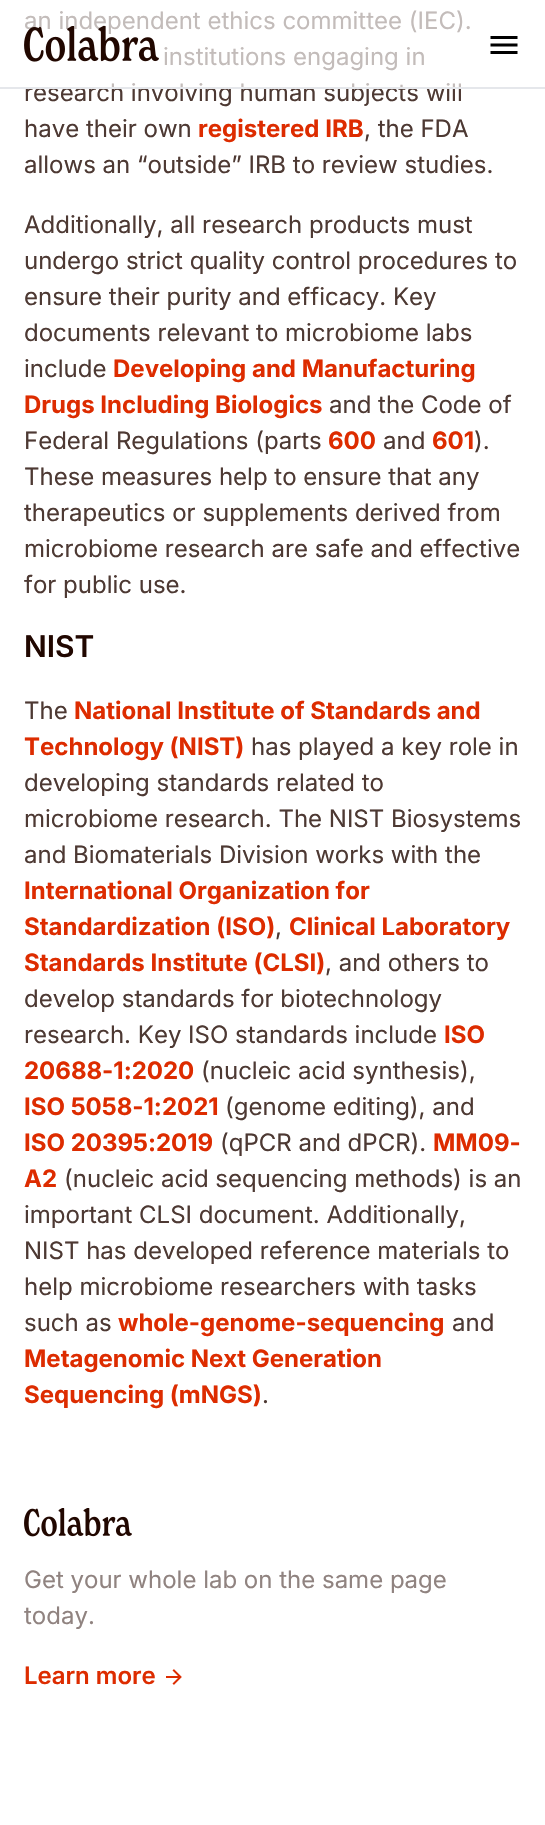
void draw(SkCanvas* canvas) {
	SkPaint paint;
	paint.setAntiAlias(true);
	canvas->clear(0xffffffff);
	SkFont f1(fontMgr->matchFamilyStyle("Inter", SkFontStyle::Normal()), 24);
	f1.setSubpixel(true);
	paint.setColor(0xff4d3933);
	canvas->drawString("an independent ethics committee (IEC).", 24, 29, f1, paint);
	canvas->drawString("institutions engaging in", 163, 65, f1, paint);
	canvas->drawString("research involving human subjects will", 24, 101, f1, paint);
	paint.setColor(0xa8ffffff);
	canvas->drawRect(SkRect::MakeXYWH(25, 9, 445, 78), paint);
	paint.setColor(0xffe5e7eb);
	canvas->drawRect(SkRect::MakeXYWH(0, 87, 545, 2), paint);
	canvas->drawImageRect(SkImages::DeferredFromEncodedData(SkData::MakeFromFileName("img1.png")), SkRect::MakeXYWH(24, 26, 135, 36), SkSamplingOptions());
	canvas->drawImageRect(SkImages::DeferredFromEncodedData(SkData::MakeFromFileName("img2.png")), SkRect::MakeXYWH(490, 36, 28, 18), SkSamplingOptions());
	paint.setColor(0xff4d3933);
	canvas->drawString("have their own", 24, 137, f1, paint);
	SkFont f2(fontMgr->matchFamilyStyle("Inter", SkFontStyle::Bold()), 24);
	f2.setSubpixel(true);
	paint.setColor(0xffdd2c00);
	canvas->drawString("registered IRB", 198, 137, f2, paint);
	paint.setColor(0xff4d3933);
	canvas->drawString(", the FDA", 364, 137, f1, paint);
	canvas->drawString("allows an “outside” IRB to review studies.", 24, 173, f1, paint);
	canvas->drawString("Additionally, all research products must", 24, 233, f1, paint);
	canvas->drawString("undergo strict quality control procedures to", 24, 269, f1, paint);
	canvas->drawString("ensure their purity and efficacy. Key", 24, 305, f1, paint);
	canvas->drawString("documents relevant to microbiome labs", 24, 341, f1, paint);
	canvas->drawString("include", 24, 377, f1, paint);
	paint.setColor(0xffdd2c00);
	canvas->drawString("Developing and Manufacturing", 113, 377, f2, paint);
	canvas->drawString("Drugs Including Biologics", 24, 413, f2, paint);
	paint.setColor(0xff4d3933);
	canvas->drawString("and the Code of", 329, 413, f1, paint);
	canvas->drawString("Federal Regulations (parts", 24, 449, f1, paint);
	paint.setColor(0xffdd2c00);
	canvas->drawString("600", 328, 449, f2, paint);
	paint.setColor(0xff4d3933);
	canvas->drawString("and", 383, 449, f1, paint);
	paint.setColor(0xffdd2c00);
	canvas->drawString("601", 432, 449, f2, paint);
	paint.setColor(0xff4d3933);
	canvas->drawString(").", 474, 449, f1, paint);
	canvas->drawString("These measures help to ensure that any", 24, 485, f1, paint);
	canvas->drawString("therapeutics or supplements derived from", 24, 521, f1, paint);
	canvas->drawString("microbiome research are safe and effective", 24, 557, f1, paint);
	canvas->drawString("for public use.", 24, 593, f1, paint);
	SkFont f3(fontMgr->matchFamilyStyle("Inter", SkFontStyle(600, SkFontStyle::kNormal_Width, SkFontStyle::kUpright_Slant)), 30);
	f3.setSubpixel(true);
	paint.setColor(0xff210700);
	canvas->drawString("NIST", 24, 657, f3, paint);
	paint.setColor(0xff4d3933);
	canvas->drawString("The", 24, 719, f1, paint);
	paint.setColor(0xffdd2c00);
	canvas->drawString("National Institute of Standards and", 74, 719, f2, paint);
	canvas->drawString("Technology (NIST)", 24, 755, f2, paint);
	paint.setColor(0xff4d3933);
	canvas->drawString("has played a key role in", 251, 755, f1, paint);
	canvas->drawString("developing standards related to", 24, 791, f1, paint);
	canvas->drawString("microbiome research. The NIST Biosystems", 24, 827, f1, paint);
	canvas->drawString("and Biomaterials Division works with the", 24, 863, f1, paint);
	paint.setColor(0xffdd2c00);
	canvas->drawString("International Organization for", 24, 899, f2, paint);
	canvas->drawString("Standardization (ISO)", 24, 935, f2, paint);
	paint.setColor(0xff4d3933);
	canvas->drawString(",", 275, 935, f1, paint);
	paint.setColor(0xffdd2c00);
	canvas->drawString("Clinical Laboratory", 289, 935, f2, paint);
	canvas->drawString("Standards Institute (CLSI)", 24, 971, f2, paint);
	paint.setColor(0xff4d3933);
	canvas->drawString(", and others to", 325, 971, f1, paint);
	canvas->drawString("develop standards for biotechnology", 24, 1007, f1, paint);
	canvas->drawString("research. Key ISO standards include", 24, 1043, f1, paint);
	paint.setColor(0xffdd2c00);
	canvas->drawString("ISO", 444, 1043, f2, paint);
	canvas->drawString("20688-1:2020", 24, 1079, f2, paint);
	paint.setColor(0xff4d3933);
	canvas->drawString("(nucleic acid synthesis),", 201, 1079, f1, paint);
	paint.setColor(0xffdd2c00);
	canvas->drawString("ISO 5058-1:2021", 24, 1115, f2, paint);
	paint.setColor(0xff4d3933);
	canvas->drawString("(genome editing), and", 225, 1115, f1, paint);
	paint.setColor(0xffdd2c00);
	canvas->drawString("ISO 20395:2019", 24, 1151, f2, paint);
	paint.setColor(0xff4d3933);
	canvas->drawString("(qPCR and dPCR).", 220, 1151, f1, paint);
	paint.setColor(0xffdd2c00);
	canvas->drawString("MM09-", 433, 1151, f2, paint);
	canvas->drawString("A2", 24, 1187, f2, paint);
	paint.setColor(0xff4d3933);
	canvas->drawString("(nucleic acid sequencing methods) is an", 64, 1187, f1, paint);
	canvas->drawString("important CLSI document. Additionally,", 24, 1223, f1, paint);
	canvas->drawString("NIST has developed reference materials to", 24, 1259, f1, paint);
	canvas->drawString("help microbiome researchers with tasks", 24, 1295, f1, paint);
	canvas->drawString("such as", 24, 1331, f1, paint);
	paint.setColor(0xffdd2c00);
	canvas->drawString("whole-genome-sequencing", 118, 1331, f2, paint);
	paint.setColor(0xff4d3933);
	canvas->drawString("and", 452, 1331, f1, paint);
	paint.setColor(0xffdd2c00);
	canvas->drawString("Metagenomic Next Generation", 24, 1367, f2, paint);
	canvas->drawString("Sequencing (mNGS)", 24, 1403, f2, paint);
	paint.setColor(0xff4d3933);
	canvas->drawString(".", 262, 1403, f1, paint);
	canvas->drawImageRect(SkImages::DeferredFromEncodedData(SkData::MakeFromFileName("img3.png")), SkRect::MakeXYWH(24, 1508, 108, 29), SkSamplingOptions());
	paint.setColor(0xff908380);
	canvas->drawString("Get your whole lab on the same page", 24, 1588, f1, paint);
	canvas->drawString("today.", 24, 1624, f1, paint);
	SkFont f4(fontMgr->matchFamilyStyle("Inter", SkFontStyle(600, SkFontStyle::kNormal_Width, SkFontStyle::kUpright_Slant)), 24);
	f4.setSubpixel(true);
	paint.setColor(0xffdd2c00);
	canvas->drawString("Learn more", 24, 1684, f4, paint);
	canvas->drawImageRect(SkImages::DeferredFromEncodedData(SkData::MakeFromFileName("img4.png")), SkRect::MakeXYWH(166, 1669, 16, 16), SkSamplingOptions());
}
